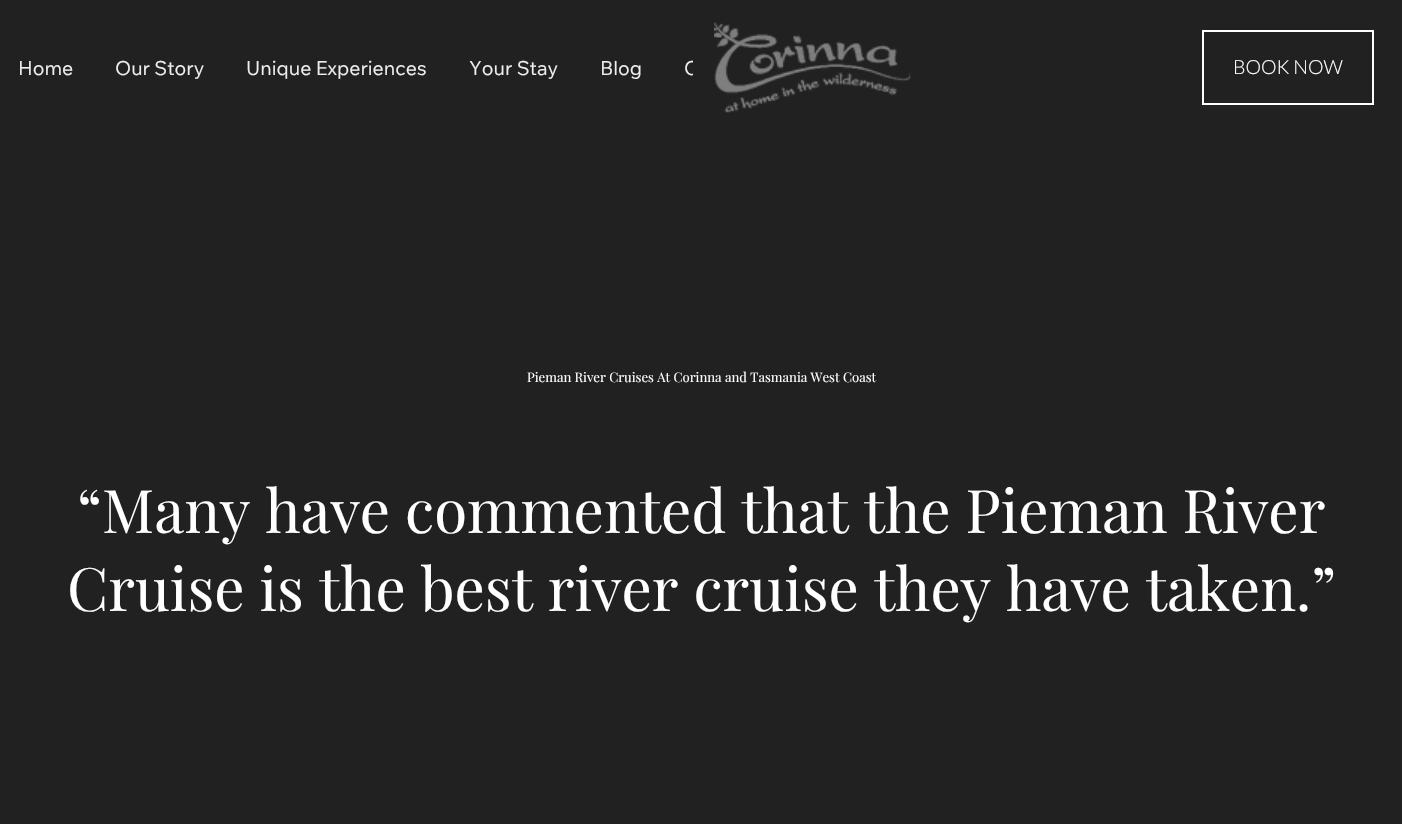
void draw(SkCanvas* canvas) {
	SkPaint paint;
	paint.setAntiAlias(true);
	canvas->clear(0xff212121);
	SkFont f1(fontMgr->matchFamilyStyle("Wix Madefor Text", SkFontStyle::Normal()), 19.5);
	f1.setSubpixel(true);
	paint.setColor(0xffeeeeee);
	canvas->drawString("Home", 18, 75, f1, paint);
	canvas->drawString("Our Story", 115, 75, f1, paint);
	canvas->drawString("Unique Experiences", 246, 75, f1, paint);
	canvas->drawString("Your Stay", 469, 75, f1, paint);
	canvas->drawString("Blog", 600, 75, f1, paint);
	canvas->save();
	canvas->clipRect(SkRect::MakeXYWH(3, 39, 690, 57));
	canvas->drawString("C", 684, 75, f1, paint);
	canvas->restore();
	canvas->drawImageRect(SkImages::DeferredFromEncodedData(SkData::MakeFromFileName("img1.png")), SkRect::MakeXYWH(714, 22, 197, 91), SkSamplingOptions());
	paint.setStroke(true);
	paint.setStrokeWidth(2);
	paint.setColor(0xffffffff);
	canvas->drawRect(SkRect::MakeXYWH(1203, 31, 170, 73), paint);
	SkFont f2(fontMgr->matchFamilyStyle("Lato", SkFontStyle(300, SkFontStyle::kNormal_Width, SkFontStyle::kUpright_Slant)), 19.5);
	f2.setSubpixel(true);
	paint.setStroke(false);
	canvas->drawString("BOOK NOW", 1233, 74, f2, paint);
	SkFont f3(fontMgr->matchFamilyStyle("Playfair Display", SkFontStyle::Normal()), 13.15);
	f3.setSubpixel(true);
	canvas->drawString("Pieman River Cruises At Corinna and Tasmania West Coast", 527, 382, f3, paint);
	SkFont f4(fontMgr->matchFamilyStyle("Playfair Display", SkFontStyle::Normal()), 60);
	f4.setSubpixel(true);
	canvas->drawString("“Many have commented that the Pieman River", 77, 533, f4, paint);
	canvas->drawString("Cruise is the best river cruise they have taken.”", 67, 611, f4, paint);
}
